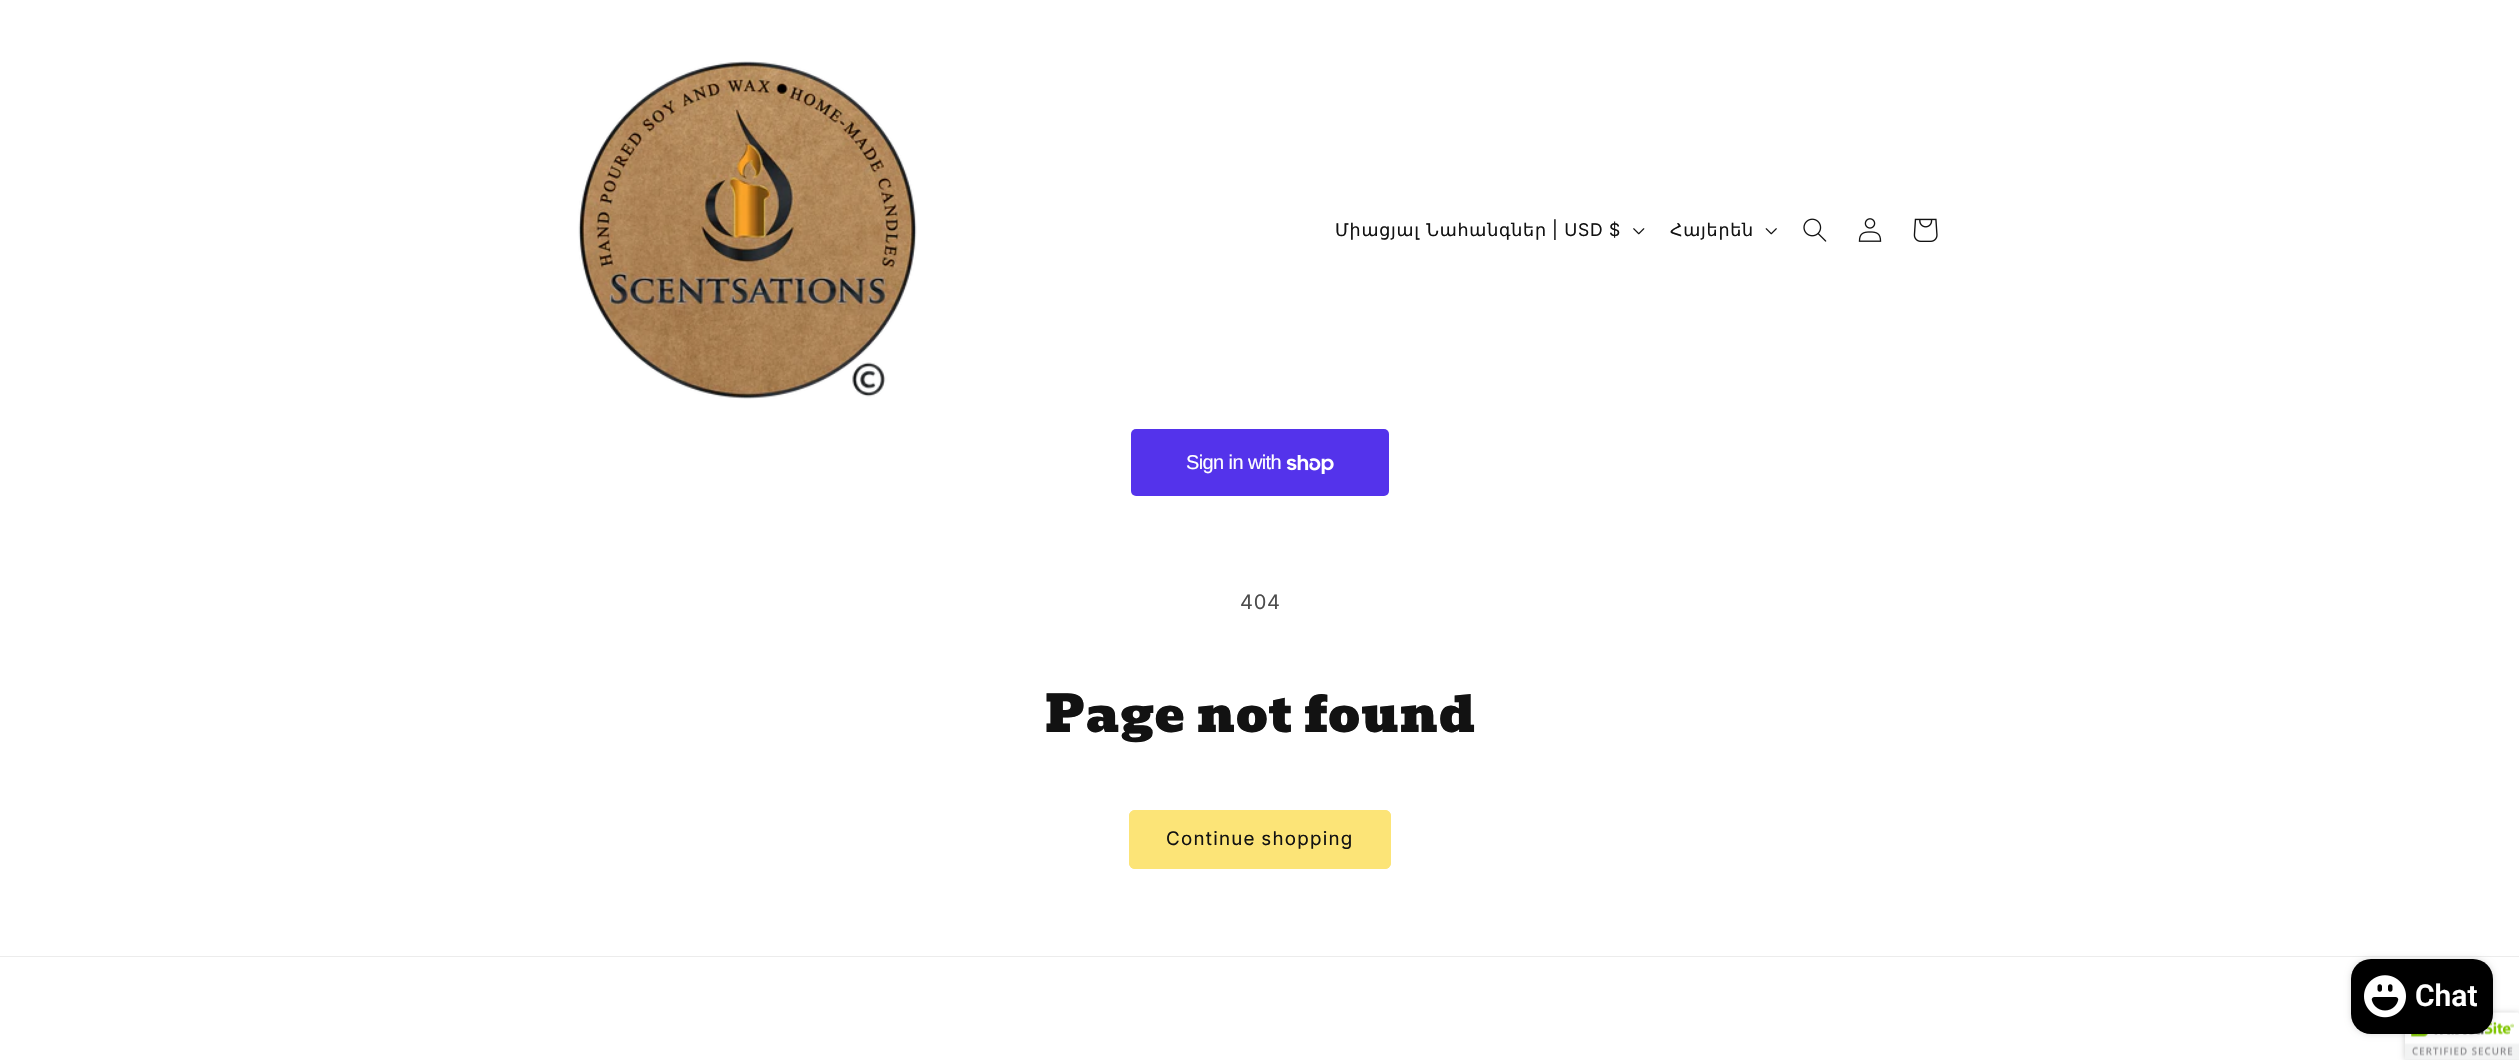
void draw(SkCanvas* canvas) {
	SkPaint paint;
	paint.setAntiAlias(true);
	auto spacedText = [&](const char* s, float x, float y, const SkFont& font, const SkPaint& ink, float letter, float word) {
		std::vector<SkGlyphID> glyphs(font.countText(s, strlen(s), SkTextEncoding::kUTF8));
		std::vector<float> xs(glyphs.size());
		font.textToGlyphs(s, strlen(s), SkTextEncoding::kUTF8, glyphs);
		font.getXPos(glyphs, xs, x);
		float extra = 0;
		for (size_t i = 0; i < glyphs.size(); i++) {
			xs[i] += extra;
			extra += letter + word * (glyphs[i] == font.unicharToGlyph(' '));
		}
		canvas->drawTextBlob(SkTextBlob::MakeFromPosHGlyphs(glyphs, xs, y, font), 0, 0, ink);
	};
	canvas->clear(0xffffffff);
	canvas->drawImageRect(SkImages::DeferredFromEncodedData(SkData::MakeFromFileName("img1.png")), SkRect::MakeXYWH(578, 61, 339, 338), SkSamplingOptions());
	SkFont f1(fontMgr->matchFamilyStyle("DejaVu Sans", SkFontStyle::Normal()), 17.5);
	f1.setSubpixel(true);
	paint.setColor(0xff121212);
	spacedText("Միացյալ Նահանգներ", 1335, 236, f1, paint, 0.75, 0);
	SkFont f2(fontMgr->matchFamilyStyle("Inter", SkFontStyle::Normal()), 17.5);
	f2.setSubpixel(true);
	spacedText("| USD $", 1552, 236, f2, paint, 0.75, 0);
	canvas->drawImageRect(SkImages::DeferredFromEncodedData(SkData::MakeFromFileName("img2.png")), SkRect::MakeXYWH(1633, 228, 12, 7), SkSamplingOptions());
	spacedText("Հայերեն", 1670, 236, f1, paint, 0.75, 0);
	canvas->drawImageRect(SkImages::DeferredFromEncodedData(SkData::MakeFromFileName("img3.png")), SkRect::MakeXYWH(1765, 228, 12, 7), SkSamplingOptions());
	canvas->drawImageRect(SkImages::DeferredFromEncodedData(SkData::MakeFromFileName("img4.png")), SkRect::MakeXYWH(1803, 218, 24, 24), SkSamplingOptions());
	canvas->drawImageRect(SkImages::DeferredFromEncodedData(SkData::MakeFromFileName("img5.png")), SkRect::MakeXYWH(1858, 218, 24, 24), SkSamplingOptions());
	canvas->drawImageRect(SkImages::DeferredFromEncodedData(SkData::MakeFromFileName("img6.png")), SkRect::MakeXYWH(1913, 218, 25, 24), SkSamplingOptions());
	paint.setColor(0xff5433eb);
	canvas->drawRoundRect(SkRect::MakeXYWH(1131, 429, 258, 67), 5, 5, paint);
	SkFont f3(fontMgr->matchFamilyStyle("Liberation Sans", SkFontStyle::Normal()), 20);
	f3.setSubpixel(true);
	paint.setColor(0xffffffff);
	spacedText("Sign in with", 1186, 469, f3, paint, -0.6, 0);
	canvas->drawImageRect(SkImages::DeferredFromEncodedData(SkData::MakeFromFileName("img7.png")), SkRect::MakeXYWH(1286, 455, 48, 19), SkSamplingOptions());
	SkFont f4(fontMgr->matchFamilyStyle("Inter", SkFontStyle::Normal()), 20);
	f4.setSubpixel(true);
	paint.setColor(0xff4d4d4d);
	spacedText("404", 1240, 609, f4, paint, 0.75, 0);
	SkFont f5(fontMgr->matchFamilyStyle("Bevan", SkFontStyle::Normal()), 50);
	f5.setSubpixel(true);
	paint.setColor(0xff121212);
	spacedText("Page not found", 1045, 732, f5, paint, 0.75, 0);
	paint.setColor(0xfffce477);
	canvas->drawRoundRect(SkRect::MakeXYWH(1129, 810, 262, 59), 6, 6, paint);
	paint.setStroke(true);
	paint.setStrokeWidth(1);
	canvas->drawRoundRect(SkRect::MakeXYWH(1129.5, 810.5, 261, 58), 5.5, 5.5, paint);
	SkFont f6(fontMgr->matchFamilyStyle("Inter", SkFontStyle::Normal()), 18.75);
	f6.setSubpixel(true);
	paint.setStroke(false);
	paint.setColor(0xff121212);
	spacedText("Continue shopping", 1166, 845, f6, paint, 1.25, -1);
	paint.setColor(0xffececec);
	canvas->drawRect(SkRect::MakeXYWH(0, 956, 2519, 1), paint);
	paint.setColor(0x33000000);
	paint.setMaskFilter(SkMaskFilter::MakeBlur(kNormal_SkBlurStyle, 3));
	canvas->drawRoundRect(SkRect::MakeXYWH(2405, 1013, 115, 47), 2.5, 2.5, paint);
	paint.setMaskFilter(nullptr);
	canvas->drawImageRect(SkImages::DeferredFromEncodedData(SkData::MakeFromFileName("img9.png")), SkRect::MakeXYWH(2405, 1012, 114, 48), SkSamplingOptions());
	paint.setColor(0x26000000);
	paint.setMaskFilter(SkMaskFilter::MakeBlur(kNormal_SkBlurStyle, 3));
	canvas->drawRoundRect(SkRect::MakeXYWH(2351, 959, 142, 75), 20, 20, paint);
	paint.setMaskFilter(nullptr);
	paint.setColor(0xff000000);
	canvas->drawRoundRect(SkRect::MakeXYWH(2351, 959, 142, 75), 20, 20, paint);
	canvas->drawImageRect(SkImages::DeferredFromEncodedData(SkData::MakeFromFileName("img8.png")), SkRect::MakeXYWH(2364, 975, 42, 43), SkSamplingOptions());
	SkFont f7(fontMgr->matchFamilyStyle("Roboto", SkFontStyle(600, SkFontStyle::kNormal_Width, SkFontStyle::kUpright_Slant)), 30);
	f7.setSubpixel(true);
	paint.setColor(0xffffffff);
	canvas->drawString("Chat", 2415, 1006, f7, paint);
}
